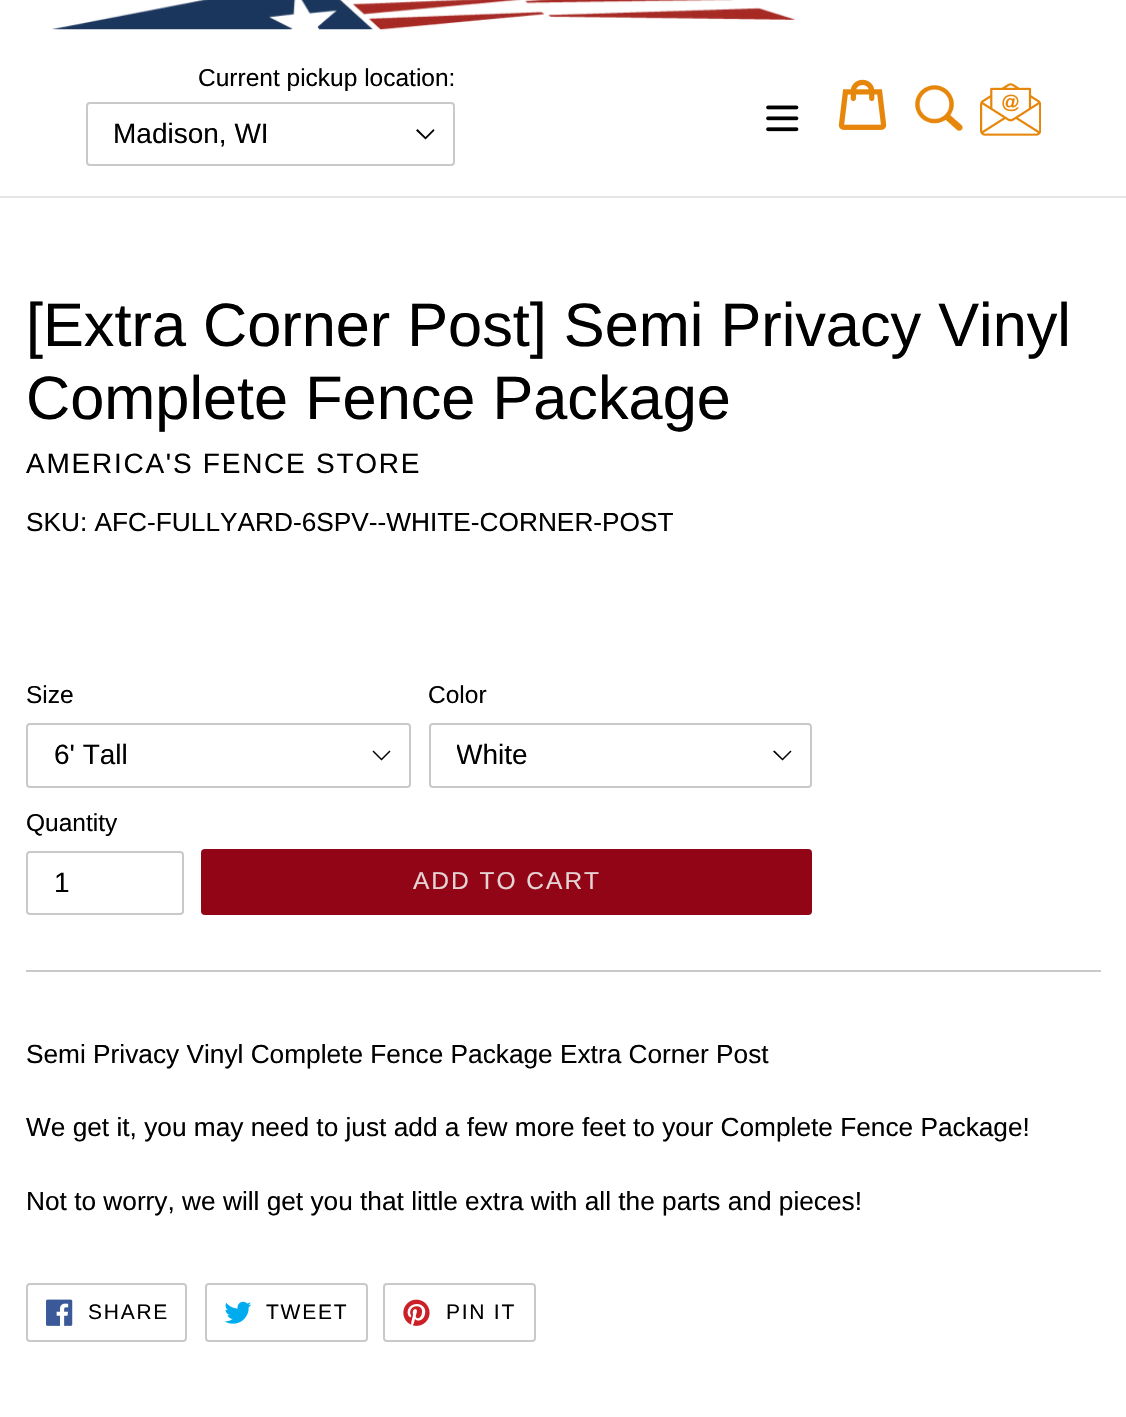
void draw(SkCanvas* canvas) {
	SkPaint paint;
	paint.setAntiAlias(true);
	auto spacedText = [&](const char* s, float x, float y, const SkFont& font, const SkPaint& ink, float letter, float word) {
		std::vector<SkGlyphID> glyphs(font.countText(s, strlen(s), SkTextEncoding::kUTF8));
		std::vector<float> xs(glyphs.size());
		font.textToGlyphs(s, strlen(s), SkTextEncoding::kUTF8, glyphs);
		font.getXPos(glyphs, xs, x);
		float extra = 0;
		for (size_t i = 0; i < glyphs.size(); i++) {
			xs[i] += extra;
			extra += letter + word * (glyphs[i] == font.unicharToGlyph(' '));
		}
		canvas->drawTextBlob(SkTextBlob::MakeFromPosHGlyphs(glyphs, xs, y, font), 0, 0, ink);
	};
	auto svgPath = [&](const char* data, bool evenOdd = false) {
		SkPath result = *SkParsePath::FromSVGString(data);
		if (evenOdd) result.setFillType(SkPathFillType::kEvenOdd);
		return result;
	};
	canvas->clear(0xffffffff);
	paint.setColor(0xffe6e6e6);
	canvas->drawRect(SkRect::MakeXYWH(0, 196, 1126, 2), paint);
	canvas->drawImageRect(SkImages::DeferredFromEncodedData(SkData::MakeFromFileName("img1.png")), SkRect::MakeXYWH(52, 0, 744, 30), SkSamplingOptions());
	SkFont f1(fontMgr->matchFamilyStyle("Liberation Sans", SkFontStyle::Normal()), 24.5);
	f1.setSubpixel(true);
	paint.setColor(0xff000000);
	canvas->drawString("Current pickup location:", 198, 86, f1, paint);
	canvas->drawPath(svgPath("M425.5 139.5L416 130.5L417.5 129L425.5 137L433.5 129L434.5 130.5Z"), paint);
	paint.setStroke(true);
	paint.setStrokeWidth(2);
	paint.setColor(0xffc9c9c9);
	canvas->drawRoundRect(SkRect::MakeXYWH(87, 103, 367, 62), 3, 3, paint);
	SkFont f2(fontMgr->matchFamilyStyle("Liberation Sans", SkFontStyle::Normal()), 28);
	f2.setSubpixel(true);
	paint.setStroke(false);
	paint.setColor(0xff000000);
	canvas->drawString("Madison, WI", 113, 143, f2, paint);
	canvas->drawImageRect(SkImages::DeferredFromEncodedData(SkData::MakeFromFileName("img2.png")), SkRect::MakeXYWH(766, 105, 33, 27), SkSamplingOptions());
	canvas->drawImageRect(SkImages::DeferredFromEncodedData(SkData::MakeFromFileName("img3.png")), SkRect::MakeXYWH(838, 79, 49, 51), SkSamplingOptions());
	canvas->drawImageRect(SkImages::DeferredFromEncodedData(SkData::MakeFromFileName("img4.png")), SkRect::MakeXYWH(915, 85, 48, 46), SkSamplingOptions());
	canvas->drawImageRect(SkImages::DeferredFromEncodedData(SkData::MakeFromFileName("img5.png")), SkRect::MakeXYWH(980, 83, 61, 53), SkSamplingOptions());
	SkFont f3(fontMgr->matchFamilyStyle("Liberation Sans", SkFontStyle::Normal()), 61.25);
	f3.setSubpixel(true);
	canvas->drawString("[Extra Corner Post] Semi Privacy Vinyl", 26, 346, f3, paint);
	canvas->drawString("Complete Fence Package", 26, 419, f3, paint);
	spacedText("AMERICA'S FENCE STORE", 26, 473, f2, paint, 1.75, 0);
	SkFont f4(fontMgr->matchFamilyStyle("Liberation Sans", SkFontStyle::Normal()), 26.25);
	f4.setSubpixel(true);
	canvas->drawString("SKU: AFC-FULLYARD-6SPV--WHITE-CORNER-POST", 26, 531, f4, paint);
	canvas->drawString("Size", 26, 703, f1, paint);
	canvas->drawPath(svgPath("M381.5 760.5L372.5 751.5L373.5 750.5L381.5 758.5L389.5 750.5L390.5 751.5Z"), paint);
	paint.setStroke(true);
	paint.setColor(0xffc9c9c9);
	canvas->drawRoundRect(SkRect::MakeXYWH(27, 724, 383, 63), 3, 3, paint);
	paint.setStroke(false);
	paint.setColor(0xff000000);
	canvas->drawString("6' Tall", 54, 764, f2, paint);
	canvas->drawString("Color", 428, 703, f1, paint);
	canvas->drawPath(svgPath("M782.5 760.5L773 751.5L774.5 750.5L782.5 758.5L790.5 750.5L791.5 751.5Z"), paint);
	paint.setStroke(true);
	paint.setColor(0xffc9c9c9);
	canvas->drawRoundRect(SkRect::MakeXYWH(430, 724, 381, 63), 3, 3, paint);
	canvas->save();
	canvas->clipRect(SkRect::MakeXYWH(457, 739, 304, 33));
	paint.setStroke(false);
	paint.setColor(0xff000000);
	canvas->drawString("White", 456, 764, f2, paint);
	canvas->restore();
	canvas->drawString("Quantity", 26, 831, f1, paint);
	paint.setStroke(true);
	paint.setColor(0xffc9c9c9);
	canvas->drawRoundRect(SkRect::MakeXYWH(27, 852, 156, 62), 3, 3, paint);
	paint.setStroke(false);
	paint.setColor(0xff000000);
	canvas->drawString("1", 54, 892, f2, paint);
	paint.setColor(0xff910516);
	canvas->drawRoundRect(SkRect::MakeXYWH(201, 849, 611, 66), 4, 4, paint);
	paint.setColor(0xffe6d4d4);
	spacedText("ADD TO CART", 413, 889, f1, paint, 2, 0);
	paint.setColor(0xffc9c9c9);
	canvas->drawRect(SkRect::MakeXYWH(26, 970, 1075, 2), paint);
	paint.setColor(0xff000000);
	canvas->drawString("Semi Privacy Vinyl Complete Fence Package Extra Corner Post", 26, 1063, f4, paint);
	canvas->drawString("We get it, you may need to just add a few more feet to your Complete Fence Package!", 26, 1136, f4, paint);
	canvas->drawString("Not to worry, we will get you that little extra with all the parts and pieces!", 26, 1210, f4, paint);
	paint.setStroke(true);
	paint.setColor(0xffc9c9c9);
	canvas->drawRoundRect(SkRect::MakeXYWH(27, 1284, 159, 57), 3, 3, paint);
	canvas->drawImageRect(SkImages::DeferredFromEncodedData(SkData::MakeFromFileName("img6.png")), SkRect::MakeXYWH(46, 1299, 27, 27), SkSamplingOptions());
	SkFont f5(fontMgr->matchFamilyStyle("Liberation Sans", SkFontStyle::Normal()), 21);
	f5.setSubpixel(true);
	paint.setStroke(false);
	paint.setColor(0xff000000);
	spacedText("SHARE", 88, 1319, f5, paint, 1.75, 0);
	paint.setStroke(true);
	paint.setColor(0xffc9c9c9);
	canvas->drawRoundRect(SkRect::MakeXYWH(206, 1284, 161, 57), 3, 3, paint);
	canvas->drawImageRect(SkImages::DeferredFromEncodedData(SkData::MakeFromFileName("img7.png")), SkRect::MakeXYWH(224, 1301, 28, 23), SkSamplingOptions());
	paint.setStroke(false);
	paint.setColor(0xff000000);
	spacedText("TWEET", 266, 1319, f5, paint, 1.75, 0);
	paint.setStroke(true);
	paint.setColor(0xffc9c9c9);
	canvas->drawRoundRect(SkRect::MakeXYWH(384, 1284, 151, 57), 3, 3, paint);
	canvas->drawImageRect(SkImages::DeferredFromEncodedData(SkData::MakeFromFileName("img8.png")), SkRect::MakeXYWH(403, 1299, 27, 27), SkSamplingOptions());
	paint.setStroke(false);
	paint.setColor(0xff000000);
	spacedText("PIN IT", 446, 1319, f5, paint, 1.75, 0);
}
